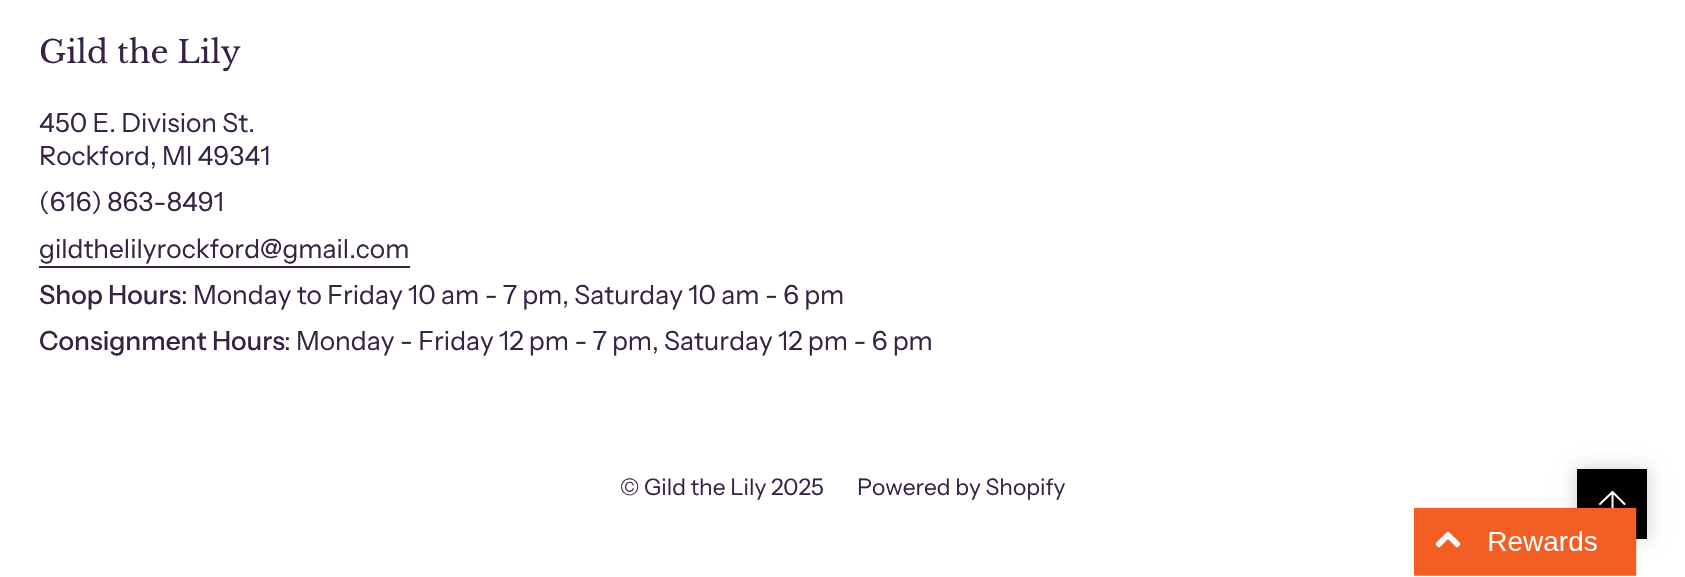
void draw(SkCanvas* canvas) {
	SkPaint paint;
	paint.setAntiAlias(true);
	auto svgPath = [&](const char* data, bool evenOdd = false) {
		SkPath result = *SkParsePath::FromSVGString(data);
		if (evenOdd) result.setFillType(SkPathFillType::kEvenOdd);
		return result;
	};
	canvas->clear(0xffffffff);
	SkFont f1(fontMgr->matchFamilyStyle("Libre Baskerville", SkFontStyle::Normal()), 31.25);
	f1.setSubpixel(true);
	paint.setColor(0xff372344);
	canvas->drawString("Gild the Lily", 39, 63, f1, paint);
	SkFont f2(fontMgr->matchFamilyStyle("Instrument Sans", SkFontStyle::Normal()), 26.25);
	f2.setSubpixel(true);
	canvas->drawString("450 E. Division St.", 39, 132, f2, paint);
	canvas->drawString("Rockford, MI 49341", 39, 165, f2, paint);
	canvas->drawString("(616) 863-8491", 39, 211, f2, paint);
	canvas->drawString("gildthelilyrockford@gmail.com", 39, 258, f2, paint);
	canvas->drawRect(SkRect::MakeXYWH(39, 266, 371, 2), paint);
	SkFont f3(fontMgr->matchFamilyStyle("Instrument Sans", SkFontStyle(500, SkFontStyle::kNormal_Width, SkFontStyle::kUpright_Slant)), 26.25);
	f3.setSubpixel(true);
	canvas->drawString("Shop Hours", 39, 304, f3, paint);
	canvas->drawString(": Monday to Friday 10 am - 7 pm, Saturday 10 am - 6 pm", 181, 304, f2, paint);
	canvas->drawString("Consignment Hours", 39, 350, f3, paint);
	canvas->drawString(": Monday - Friday 12 pm - 7 pm, Saturday 12 pm - 6 pm", 284, 350, f2, paint);
	SkFont f4(fontMgr->matchFamilyStyle("Instrument Sans", SkFontStyle::Normal()), 22.75);
	f4.setSubpixel(true);
	canvas->drawString("© Gild the Lily 2025", 620, 495, f4, paint);
	canvas->drawString("Powered by Shopify", 857, 495, f4, paint);
	paint.setColor(0x33000000);
	paint.setMaskFilter(SkMaskFilter::MakeBlur(kNormal_SkBlurStyle, 9));
	canvas->drawRect(SkRect::MakeXYWH(1577, 469, 70, 70), paint);
	paint.setMaskFilter(nullptr);
	paint.setColor(0xff000000);
	canvas->drawRect(SkRect::MakeXYWH(1577, 469, 70, 70), paint);
	paint.setStroke(true);
	paint.setStrokeWidth(2);
	paint.setStrokeCap(SkPaint::kRound_Cap);
	paint.setStrokeJoin(SkPaint::kRound_Join);
	paint.setColor(0xffffffff);
	canvas->drawPath(svgPath("M1612.5 517.5V492M1612.5 492L1624.5 504M1612.5 492L1600 504"), paint);
	canvas->drawImageRect(SkImages::DeferredFromEncodedData(SkData::MakeFromFileName("img1.png")), SkRect::MakeXYWH(1414, 507, 223, 69), SkSamplingOptions());
}
